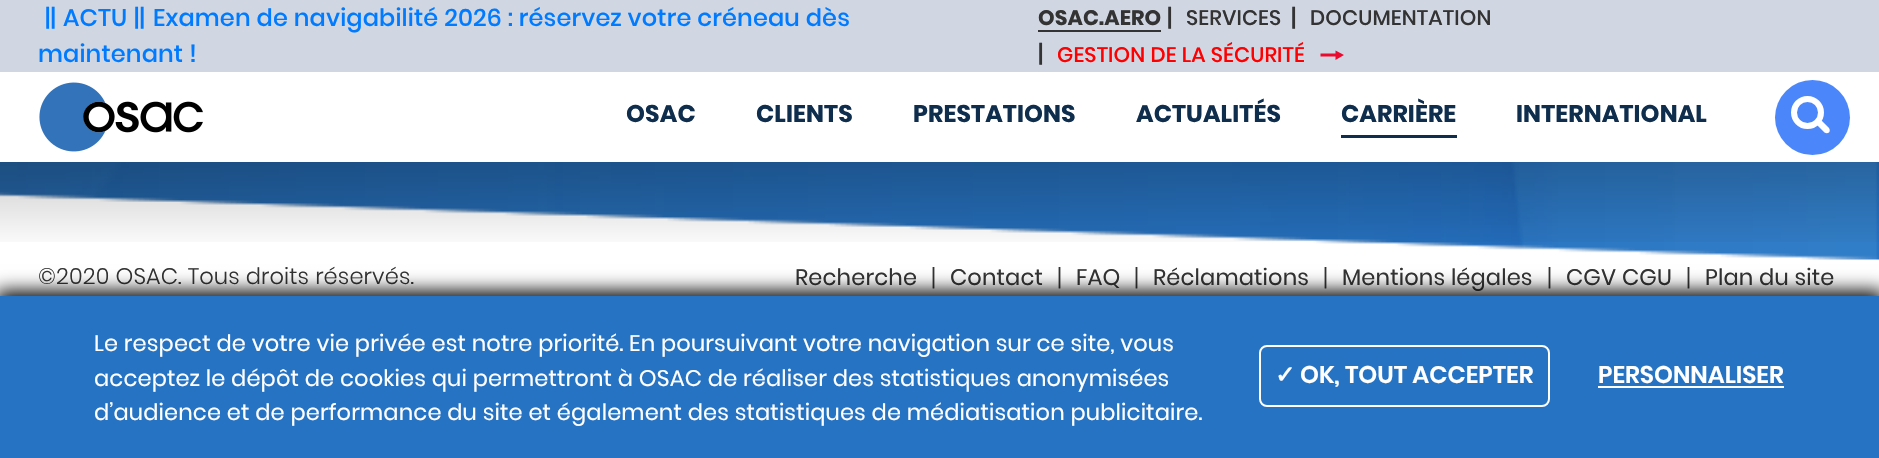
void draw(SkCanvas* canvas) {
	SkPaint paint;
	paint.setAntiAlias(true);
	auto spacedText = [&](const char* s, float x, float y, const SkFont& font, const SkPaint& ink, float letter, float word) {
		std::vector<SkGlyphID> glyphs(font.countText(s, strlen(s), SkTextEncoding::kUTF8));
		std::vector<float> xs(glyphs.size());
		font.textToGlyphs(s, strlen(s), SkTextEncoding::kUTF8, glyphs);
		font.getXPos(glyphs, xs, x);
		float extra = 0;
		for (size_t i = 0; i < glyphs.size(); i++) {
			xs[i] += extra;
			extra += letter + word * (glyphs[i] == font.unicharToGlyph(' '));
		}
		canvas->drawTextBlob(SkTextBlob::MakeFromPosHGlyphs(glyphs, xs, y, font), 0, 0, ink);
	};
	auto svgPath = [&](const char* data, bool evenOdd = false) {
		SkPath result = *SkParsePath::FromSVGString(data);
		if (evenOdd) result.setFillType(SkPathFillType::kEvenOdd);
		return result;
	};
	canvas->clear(0xffffffff);
	paint.setColor(0xffd0d6e2);
	canvas->drawRect(SkRect::MakeXYWH(0, 0, 1879, 72), paint);
	SkFont f1(fontMgr->matchFamilyStyle("Poppins", SkFontStyle(500, SkFontStyle::kNormal_Width, SkFontStyle::kUpright_Slant)), 24);
	f1.setSubpixel(true);
	paint.setColor(0xff007bff);
	spacedText("||", 45, 26, f1, paint, 0.15, 0);
	spacedText("ACTU", 63, 26, f1, paint, 0.15, 0);
	spacedText("||", 134, 26, f1, paint, 0.15, 0);
	spacedText("Examen de navigabilité 2026 : réservez votre créneau dès", 153, 26, f1, paint, 0.15, 0);
	spacedText("maintenant !", 38, 62, f1, paint, 0.15, 0);
	SkFont f2(fontMgr->matchFamilyStyle("Poppins", SkFontStyle::Bold()), 21);
	f2.setSubpixel(true);
	paint.setColor(0xff333333);
	spacedText("OSAC.AERO", 1038, 25, f2, paint, 0.15, 0);
	canvas->drawRect(SkRect::MakeXYWH(1038, 30, 123, 2), paint);
	spacedText("|", 1167, 26, f1, paint, 0.15, 0);
	SkFont f3(fontMgr->matchFamilyStyle("Poppins", SkFontStyle(500, SkFontStyle::kNormal_Width, SkFontStyle::kUpright_Slant)), 21);
	f3.setSubpixel(true);
	spacedText("SERVICES", 1186, 25, f3, paint, 0.15, 0);
	spacedText("|", 1291, 26, f1, paint, 0.15, 0);
	spacedText("DOCUMENTATION", 1310, 25, f3, paint, 0.15, 0);
	spacedText("|", 1038, 62, f1, paint, 0.15, 0);
	paint.setColor(0xffff0000);
	spacedText("GESTION DE LA SÉCURITÉ", 1057, 62, f3, paint, 0.15, 0);
	paint.setColor(0xffec0a2f);
	canvas->drawPath(svgPath("M1344 55L1335.5 50.5V53.5H1320.5V56.5H1335.5V60Z"), paint);
	canvas->drawImageRect(SkImages::DeferredFromEncodedData(SkData::MakeFromFileName("img1.png")), SkRect::MakeXYWH(39, 82, 164, 70), SkSamplingOptions());
	SkFont f4(fontMgr->matchFamilyStyle("Poppins", SkFontStyle::Bold()), 24);
	f4.setSubpixel(true);
	paint.setColor(0xff0f2e4e);
	spacedText("OSAC", 626, 122, f4, paint, 0.15, 0);
	spacedText("CLIENTS", 756, 122, f4, paint, 0.15, 0);
	spacedText("PRESTATIONS", 913, 122, f4, paint, 0.15, 0);
	spacedText("ACTUALITÉS", 1136, 122, f4, paint, 0.15, 0);
	spacedText("CARRIÈRE", 1341, 122, f4, paint, 0.15, 0);
	canvas->drawRect(SkRect::MakeXYWH(1341, 135, 116, 3), paint);
	spacedText("INTERNATIONAL", 1516, 122, f4, paint, 0.15, 0);
	paint.setColor(0xff4b87fa);
	canvas->drawCircle(1812.5, 117.5, 37.5, paint);
	paint.setStroke(true);
	paint.setStrokeWidth(6);
	paint.setColor(0xffffffff);
	canvas->drawCircle(1807.5, 112.5, 13.5, paint);
	paint.setStroke(false);
	canvas->drawPath(svgPath("M1820.5 119.5L1829 128C1830 129.5 1830 131 1829 132.5C1827.5 133.5 1826 133.5 1824.5 132.5L1816 124C1815 122.5 1815 121 1816 119.5C1817.5 118.5 1819 118.5 1820.5 119.5Z"), paint);
	canvas->drawImageRect(SkImages::DeferredFromEncodedData(SkData::MakeFromFileName("img2.png")), SkRect::MakeXYWH(0, 162, 1879, 98), SkSamplingOptions());
	{
		const SkColor colors[] = {0x33010101, 0x00010101};
		const float stops[] = {0, 1};
		const SkPoint ends[] = {{940, 162}, {940, 252}};
		paint.setShader(SkGradientShader::MakeLinear(ends, colors, stops, 2, SkTileMode::kClamp));
		paint.setAlpha(255);
	}
	canvas->drawRect(SkRect::MakeXYWH(0, 162, 1879, 80), paint);
	SkFont f5(fontMgr->matchFamilyStyle("Poppins", SkFontStyle(300, SkFontStyle::kNormal_Width, SkFontStyle::kUpright_Slant)), 22.5);
	f5.setSubpixel(true);
	paint.setShader(nullptr);
	paint.setColor(0xff333333);
	spacedText("©2020 OSAC. Tous droits réservés.", 38, 284, f5, paint, 0.15, 0);
	SkFont f6(fontMgr->matchFamilyStyle("Poppins", SkFontStyle::Normal()), 22.5);
	f6.setSubpixel(true);
	spacedText("Recherche", 795, 285, f6, paint, 0.15, 0);
	SkFont f7(fontMgr->matchFamilyStyle("Poppins", SkFontStyle(300, SkFontStyle::kNormal_Width, SkFontStyle::kUpright_Slant)), 24);
	f7.setSubpixel(true);
	spacedText("|", 931, 286, f7, paint, 0.15, 0);
	spacedText("Contact", 950, 285, f6, paint, 0.15, 0);
	spacedText("|", 1057, 286, f7, paint, 0.15, 0);
	spacedText("FAQ", 1076, 285, f6, paint, 0.15, 0);
	spacedText("|", 1134, 286, f7, paint, 0.15, 0);
	spacedText("Réclamations", 1153, 285, f6, paint, 0.15, 0);
	spacedText("|", 1323, 286, f7, paint, 0.15, 0);
	spacedText("Mentions légales", 1342, 285, f6, paint, 0.15, 0);
	spacedText("|", 1547, 286, f7, paint, 0.15, 0);
	spacedText("CGV CGU", 1566, 285, f6, paint, 0.15, 0);
	spacedText("|", 1686, 286, f7, paint, 0.15, 0);
	spacedText("Plan du site", 1705, 285, f6, paint, 0.15, 0);
	paint.setColor(0xff000000);
	paint.setMaskFilter(SkMaskFilter::MakeBlur(kNormal_SkBlurStyle, 9));
	canvas->drawRect(SkRect::MakeXYWH(-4, 291, 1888, 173), paint);
	paint.setMaskFilter(nullptr);
	paint.setColor(0xff2673c3);
	canvas->drawRect(SkRect::MakeXYWH(0, 296, 1879, 162), paint);
	paint.setColor(0xffffffff);
	spacedText("Le respect de votre vie privée est notre priorité. En poursuivant votre navigation sur ce site, vous", 94, 351, f6, paint, 0.15, 0);
	spacedText("acceptez le dépôt de cookies qui permettront à OSAC de réaliser des statistiques anonymisées", 94, 386, f6, paint, 0.15, 0);
	spacedText("d’audience et de performance du site et également des statistiques de médiatisation publicitaire.", 94, 420, f6, paint, 0.15, 0);
	paint.setStroke(true);
	paint.setStrokeWidth(2);
	canvas->drawRoundRect(SkRect::MakeXYWH(1260, 346, 289, 60), 7, 7, paint);
	SkFont f8(fontMgr->matchFamilyStyle("DejaVu Sans", SkFontStyle::Bold()), 24);
	f8.setSubpixel(true);
	paint.setStroke(false);
	canvas->drawString("✓", 1275, 383, f8, paint);
	SkFont f9(fontMgr->matchFamilyStyle("Poppins", SkFontStyle(600, SkFontStyle::kNormal_Width, SkFontStyle::kUpright_Slant)), 24);
	f9.setSubpixel(true);
	canvas->drawString("OK, TOUT ACCEPTER", 1300, 383, f9, paint);
	canvas->drawString("PERSONNALISER", 1598, 383, f9, paint);
	canvas->drawRect(SkRect::MakeXYWH(1598, 386, 186, 2), paint);
}
